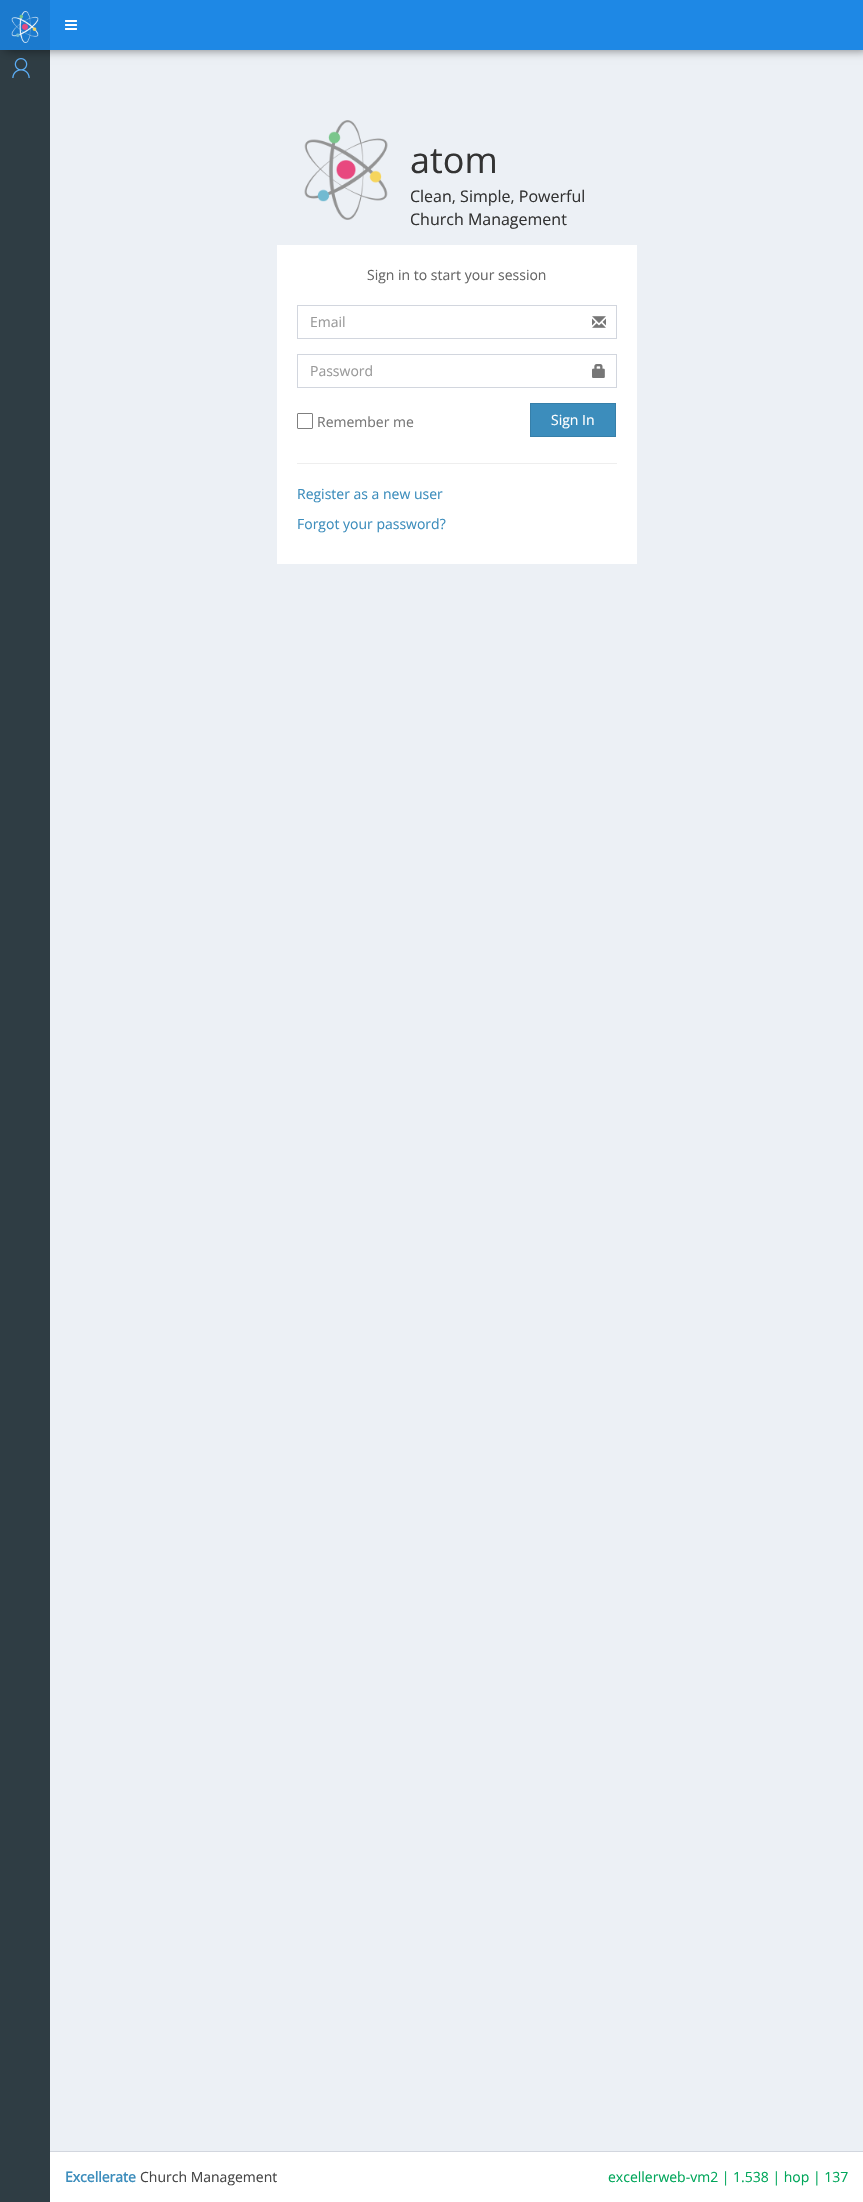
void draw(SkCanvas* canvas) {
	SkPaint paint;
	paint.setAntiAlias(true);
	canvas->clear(0xff2f3d44);
	canvas->drawImageRect(SkImages::DeferredFromEncodedData(SkData::MakeFromFileName("img3.png")), SkRect::MakeXYWH(12, 58, 18, 20), SkSamplingOptions());
	paint.setColor(0xffecf0f5);
	canvas->drawRect(SkRect::MakeXYWH(50, 50, 813, 2101), paint);
	paint.setColor(0x80000000);
	paint.setMaskFilter(SkMaskFilter::MakeBlur(kNormal_SkBlurStyle, 5));
	canvas->drawRect(SkRect::MakeXYWH(5, 0, 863, 50), paint);
	paint.setMaskFilter(nullptr);
	paint.setColor(0xff1b7ace);
	canvas->drawRect(SkRect::MakeXYWH(0, 0, 50, 50), paint);
	canvas->drawImageRect(SkImages::DeferredFromEncodedData(SkData::MakeFromFileName("img1.png")), SkRect::MakeXYWH(11, 11, 28, 32), SkSamplingOptions());
	paint.setColor(0xff1e88e5);
	canvas->drawRect(SkRect::MakeXYWH(50, 0, 813, 50), paint);
	canvas->drawImageRect(SkImages::DeferredFromEncodedData(SkData::MakeFromFileName("img2.png")), SkRect::MakeXYWH(65, 20, 12, 10), SkSamplingOptions());
	canvas->drawImageRect(SkImages::DeferredFromEncodedData(SkData::MakeFromFileName("img4.png")), SkRect::MakeXYWH(304, 120, 84, 100), SkSamplingOptions());
	SkFont f1(fontMgr->matchFamilyStyle("Open Sans", SkFontStyle::Normal()), 36);
	f1.setSubpixel(true);
	paint.setColor(0xff333333);
	canvas->drawString("atom", 410, 173, f1, paint);
	SkFont f2(fontMgr->matchFamilyStyle("Open Sans", SkFontStyle::Normal()), 16);
	f2.setSubpixel(true);
	canvas->drawString("Clean, Simple, Powerful", 410, 202, f2, paint);
	canvas->drawString("Church Management", 410, 225, f2, paint);
	paint.setColor(0xffffffff);
	canvas->drawRect(SkRect::MakeXYWH(277, 245, 360, 319), paint);
	SkFont f3(fontMgr->matchFamilyStyle("Open Sans", SkFontStyle::Normal()), 14);
	f3.setSubpixel(true);
	paint.setColor(0xff666666);
	canvas->drawString("Sign in to start your session", 367, 280, f3, paint);
	paint.setStroke(true);
	paint.setStrokeWidth(1);
	paint.setColor(0xffd2d6de);
	canvas->drawRect(SkRect::MakeXYWH(297.5, 305.5, 319, 33), paint);
	paint.setStroke(false);
	paint.setColor(0xff999999);
	canvas->drawString("Email", 310, 327, f3, paint);
	canvas->drawImageRect(SkImages::DeferredFromEncodedData(SkData::MakeFromFileName("img5.png")), SkRect::MakeXYWH(592, 316, 14, 12), SkSamplingOptions());
	paint.setStroke(true);
	paint.setColor(0xffd2d6de);
	canvas->drawRect(SkRect::MakeXYWH(297.5, 354.5, 319, 33), paint);
	paint.setStroke(false);
	paint.setColor(0xff999999);
	canvas->drawString("Password", 310, 376, f3, paint);
	canvas->drawImageRect(SkImages::DeferredFromEncodedData(SkData::MakeFromFileName("img6.png")), SkRect::MakeXYWH(592, 364, 13, 14), SkSamplingOptions());
	paint.setStroke(true);
	paint.setColor(0xff7f7f7f);
	canvas->drawRoundRect(SkRect::MakeXYWH(297.5, 413.5, 15, 15), 0.5, 0.5, paint);
	paint.setStroke(false);
	paint.setColor(0xff777777);
	canvas->drawString("Remember me", 317, 427, f3, paint);
	paint.setColor(0xff3c8dbc);
	canvas->drawRect(SkRect::MakeXYWH(530.5, 403.5, 85, 33), paint);
	paint.setStroke(true);
	paint.setColor(0xff367fa9);
	canvas->drawRect(SkRect::MakeXYWH(530.5, 403.5, 85, 33), paint);
	paint.setStroke(false);
	paint.setColor(0xffffffff);
	canvas->drawString("Sign In", 551, 425, f3, paint);
	paint.setColor(0xffeeeeee);
	canvas->drawRect(SkRect::MakeXYWH(297, 463, 320, 1), paint);
	paint.setColor(0xff3c8dbc);
	canvas->drawString("Register as a new user", 297, 499, f3, paint);
	canvas->drawString("Forgot your password?", 297, 529, f3, paint);
	paint.setColor(0xffffffff);
	canvas->drawRect(SkRect::MakeXYWH(50, 2152, 813, 50), paint);
	paint.setColor(0xffd2d6de);
	canvas->drawRect(SkRect::MakeXYWH(50, 2151, 813, 1), paint);
	SkFont f4(fontMgr->matchFamilyStyle("Open Sans", SkFontStyle::Bold()), 14);
	f4.setSubpixel(true);
	paint.setColor(0xff3c8dbc);
	canvas->drawString("Excellerate", 65, 2182, f4, paint);
	paint.setColor(0xff444444);
	canvas->drawString("Church Management", 140, 2182, f3, paint);
	paint.setColor(0xff00a65a);
	canvas->drawString("excellerweb-vm2 | 1.538 | hop | 137", 608, 2182, f3, paint);
}
